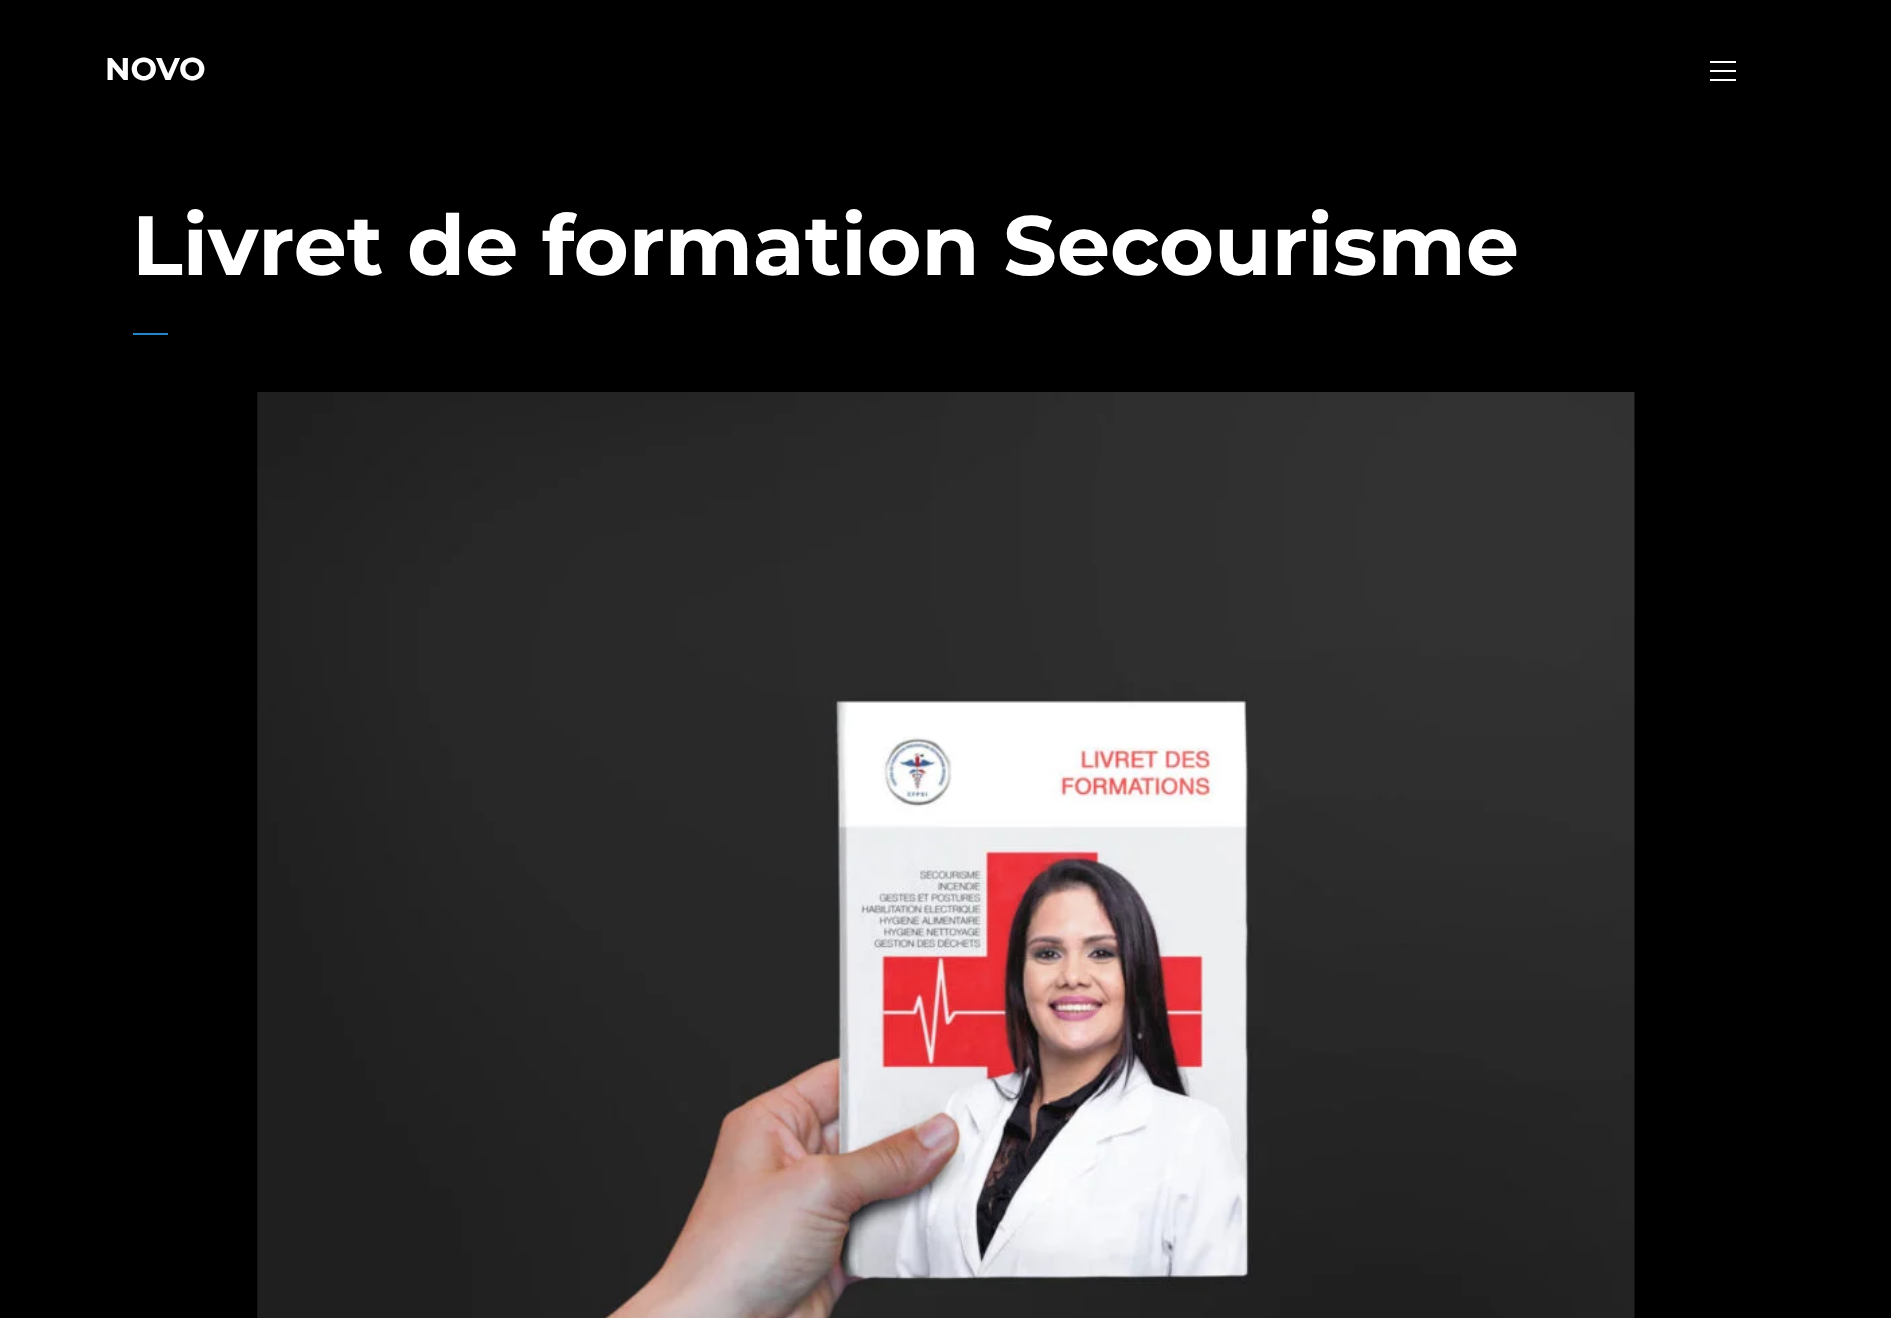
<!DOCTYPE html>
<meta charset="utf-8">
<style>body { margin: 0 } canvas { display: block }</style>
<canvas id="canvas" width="1891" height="1318"></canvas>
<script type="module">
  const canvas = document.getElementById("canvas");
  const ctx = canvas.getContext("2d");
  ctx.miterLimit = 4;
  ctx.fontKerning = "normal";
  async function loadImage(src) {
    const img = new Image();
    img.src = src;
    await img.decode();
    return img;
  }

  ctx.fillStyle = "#000000";
  ctx.fillRect(0, 0, 1891, 1318);
  ctx.font = "bold 31.5px Montserrat";
  ctx.fillStyle = "#ffffff";
  ctx.fillText("NOVO", 105, 80);
  ctx.fillRect(1710, 61, 26, 2);
  ctx.fillRect(1710, 70, 26, 2);
  ctx.fillRect(1710, 79, 26, 2);
  ctx.font = "bold 84px Montserrat";
  ctx.fillText("Livret de formation Secourisme", 132, 275);
  ctx.fillStyle = "#2087cc";
  ctx.fillRect(133, 333, 35, 2);
  ctx.drawImage(await loadImage("img1.png"), 257, 392, 1378, 926);
</script>
